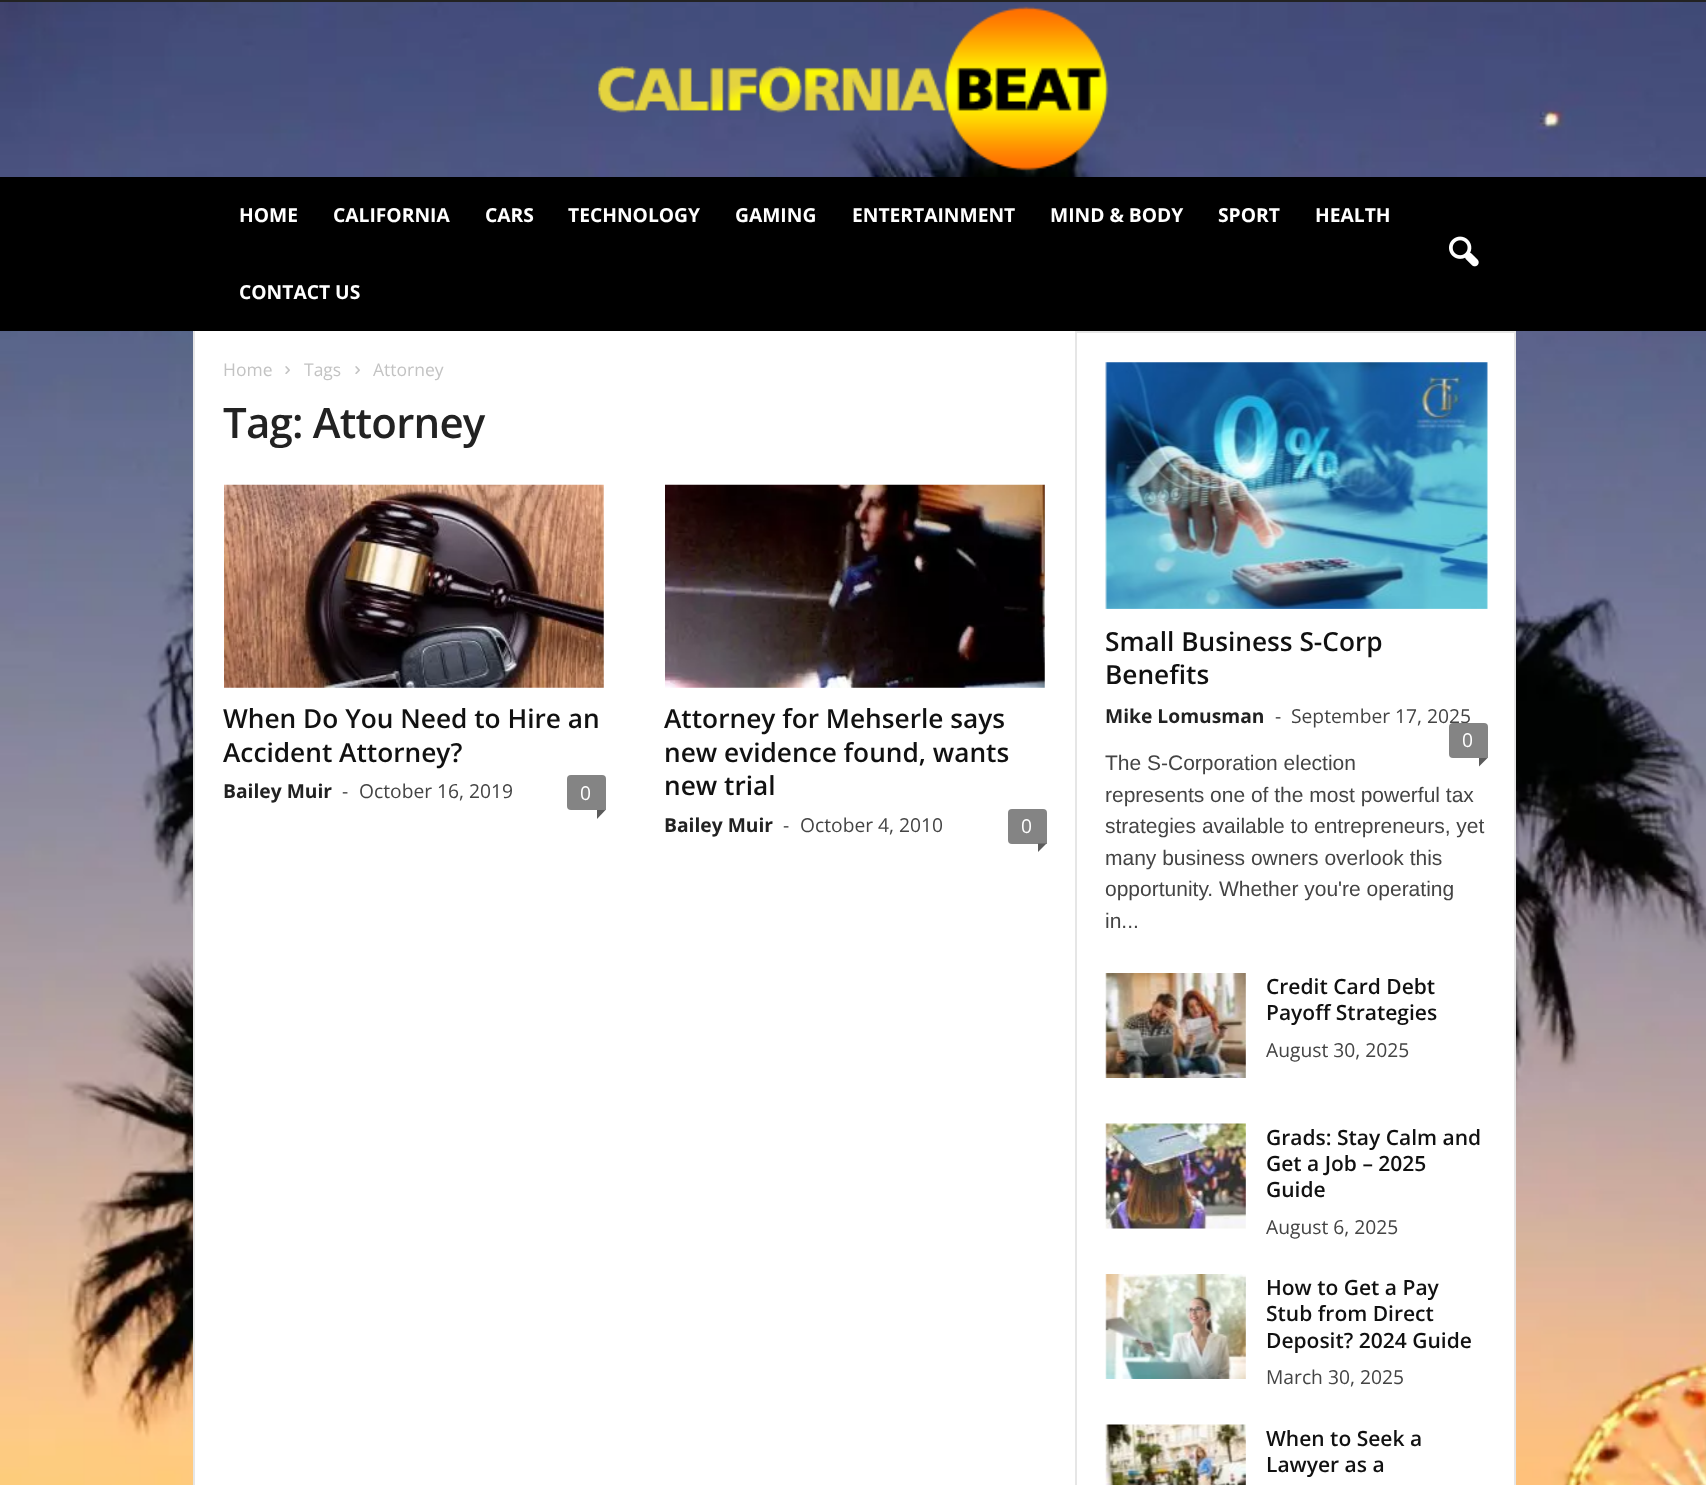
<!DOCTYPE html>
<meta charset="utf-8">
<style>body { margin: 0 } canvas { display: block }</style>
<canvas id="canvas" width="1706" height="1485"></canvas>
<script type="module">
  const canvas = document.getElementById("canvas");
  const ctx = canvas.getContext("2d");
  ctx.miterLimit = 4;
  ctx.fontKerning = "normal";
  async function loadImage(src) {
    const img = new Image();
    img.src = src;
    await img.decode();
    return img;
  }

  ctx.fillStyle = "#ffffff";
  ctx.fillRect(0, 0, 1706, 1485);
  ctx.drawImage(await loadImage("img1.png"), 0, 2, 1706, 1483);
  ctx.fillStyle = "#222222";
  ctx.fillRect(0, 0, 1706, 2);
  ctx.drawImage(await loadImage("img2.png"), 598, 6, 511, 165);
  ctx.fillStyle = "#000000";
  ctx.fillRect(0, 177, 1706, 154);
  ctx.font = "bold 19.25px Open Sans";
  ctx.fillStyle = "#ffffff";
  ctx.fillText("HOME", 239, 222);
  ctx.fillText("CALIFORNIA", 333, 222);
  ctx.fillText("CARS", 485, 222);
  ctx.fillText("TECHNOLOGY", 568, 222);
  ctx.fillText("GAMING", 735, 222);
  ctx.fillText("ENTERTAINMENT", 852, 222);
  ctx.fillText("MIND & BODY", 1050, 222);
  ctx.fillText("SPORT", 1218, 222);
  ctx.fillText("HEALTH", 1315, 222);
  ctx.fillText("CONTACT US", 239, 299);
  ctx.drawImage(await loadImage("img3.png"), 1449, 236, 30, 31);
  ctx.fillRect(195, 331, 1319, 1154);
  ctx.fillStyle = "#e6e6e6";
  ctx.fillRect(193, 331, 2, 1154);
  ctx.font = "17.5px Open Sans";
  ctx.fillStyle = "#c3c3c3";
  ctx.fillText("Home", 223, 376);
  ctx.drawImage(await loadImage("img4.png"), 285, 366, 5, 8);
  ctx.fillText("Tags", 304, 376);
  ctx.drawImage(await loadImage("img4.png"), 355, 366, 5, 8);
  ctx.fillText("Attorney", 373, 376);
  ctx.letterSpacing = "-0.8px";
  ctx.font = "600 42px Open Sans";
  ctx.fillStyle = "#222222";
  ctx.fillText("Tag: Attorney", 223, 438);
  ctx.drawImage(await loadImage("img5.png"), 224, 484, 380, 204);
  ctx.letterSpacing = "0px";
  ctx.font = "600 26.25px Open Sans";
  ctx.fillStyle = "#111111";
  ctx.fillText("When Do You Need to Hire an", 223, 728);
  ctx.fillText("Accident Attorney?", 223, 762);
  ctx.font = "bold 19.25px Open Sans";
  ctx.fillStyle = "#222222";
  ctx.fillText("Bailey Muir", 223, 798);
  ctx.font = "19.25px Open Sans";
  ctx.fillStyle = "#444444";
  ctx.fillText("-", 342, 798);
  ctx.fillText("October 16, 2019", 359, 798);
  ctx.fillStyle = "#848484";
  ctx.beginPath();
  ctx.roundRect(567, 775, 39, 35, [4, 4, 0, 4]);
  ctx.fill();
  ctx.fillStyle = "#ffffff";
  ctx.fillText("0", 580, 800);
  ctx.fillStyle = "#5b5b5b";
  ctx.beginPath();
  ctx.moveTo(597, 810);
  ctx.lineTo(605.5, 810);
  ctx.lineTo(597, 819);
  ctx.closePath();
  ctx.fill();
  ctx.drawImage(await loadImage("img6.png"), 665, 484, 380, 204);
  ctx.font = "600 26.25px Open Sans";
  ctx.fillStyle = "#111111";
  ctx.fillText("Attorney for Mehserle says", 664, 728);
  ctx.fillText("new evidence found, wants", 664, 762);
  ctx.fillText("new trial", 664, 795);
  ctx.font = "bold 19.25px Open Sans";
  ctx.fillStyle = "#222222";
  ctx.fillText("Bailey Muir", 664, 832);
  ctx.font = "19.25px Open Sans";
  ctx.fillStyle = "#444444";
  ctx.fillText("-", 783, 832);
  ctx.fillText("October 4, 2010", 800, 832);
  ctx.fillStyle = "#848484";
  ctx.beginPath();
  ctx.roundRect(1008, 809, 39, 35, [4, 4, 0, 4]);
  ctx.fill();
  ctx.fillStyle = "#ffffff";
  ctx.fillText("0", 1021, 833);
  ctx.fillStyle = "#5b5b5b";
  ctx.beginPath();
  ctx.moveTo(1038, 843.5);
  ctx.lineTo(1046.5, 843.5);
  ctx.lineTo(1038, 852);
  ctx.closePath();
  ctx.fill();
  ctx.fillStyle = "#e6e6e6";
  ctx.fillRect(1075, 331, 2, 1154);
  ctx.fillRect(1514, 331, 2, 1154);
  ctx.fillRect(1076, 331, 440, 2);
  ctx.drawImage(await loadImage("img7.png"), 1105, 362, 383, 247);
  ctx.font = "600 26.25px Open Sans";
  ctx.fillStyle = "#111111";
  ctx.fillText("Small Business S-Corp", 1105, 651);
  ctx.fillText("Benefits", 1105, 684);
  ctx.font = "bold 19.25px Open Sans";
  ctx.fillStyle = "#222222";
  ctx.fillText("Mike Lomusman", 1105, 723);
  ctx.font = "19.25px Open Sans";
  ctx.fillStyle = "#444444";
  ctx.fillText("-", 1275, 723);
  ctx.fillText("September 17, 2025", 1291, 723);
  ctx.fillStyle = "#848484";
  ctx.beginPath();
  ctx.roundRect(1449, 723, 39, 35, [4, 4, 0, 4]);
  ctx.fill();
  ctx.fillStyle = "#ffffff";
  ctx.fillText("0", 1462, 747);
  ctx.fillStyle = "#5b5b5b";
  ctx.beginPath();
  ctx.moveTo(1479, 758);
  ctx.lineTo(1487.5, 758);
  ctx.lineTo(1479, 766.5);
  ctx.closePath();
  ctx.fill();
  ctx.font = "21px Liberation Sans";
  ctx.fillStyle = "#444444";
  ctx.fillText("The S-Corporation election", 1105, 770);
  ctx.fillText("represents one of the most powerful tax", 1105, 802);
  ctx.fillText("strategies available to entrepreneurs, yet", 1105, 833);
  ctx.fillText("many business owners overlook this", 1105, 865);
  ctx.fillText("opportunity. Whether you're operating", 1105, 896);
  ctx.fillText("in...", 1105, 928);
  ctx.drawImage(await loadImage("img8.png"), 1105, 973, 141, 105);
  ctx.font = "600 21px Open Sans";
  ctx.fillStyle = "#111111";
  ctx.fillText("Credit Card Debt", 1266, 994);
  ctx.fillText("Payoff Strategies", 1266, 1020);
  ctx.font = "19.25px Open Sans";
  ctx.fillStyle = "#444444";
  ctx.fillText("August 30, 2025", 1266, 1057);
  ctx.drawImage(await loadImage("img9.png"), 1105, 1123, 141, 106);
  ctx.font = "600 21px Open Sans";
  ctx.fillStyle = "#111111";
  ctx.fillText("Grads: Stay Calm and", 1266, 1145);
  ctx.fillText("Get a Job – 2025", 1266, 1171);
  ctx.fillText("Guide", 1266, 1197);
  ctx.font = "19.25px Open Sans";
  ctx.fillStyle = "#444444";
  ctx.fillText("August 6, 2025", 1266, 1234);
  ctx.drawImage(await loadImage("img10.png"), 1105, 1274, 141, 105);
  ctx.font = "600 21px Open Sans";
  ctx.fillStyle = "#111111";
  ctx.fillText("How to Get a Pay", 1266, 1295);
  ctx.fillText("Stub from Direct", 1266, 1321);
  ctx.fillText("Deposit? 2024 Guide", 1266, 1348);
  ctx.font = "19.25px Open Sans";
  ctx.fillStyle = "#444444";
  ctx.fillText("March 30, 2025", 1266, 1384);
  ctx.drawImage(await loadImage("img11.png"), 1105, 1424, 141, 61);
  ctx.font = "600 21px Open Sans";
  ctx.fillStyle = "#111111";
  ctx.fillText("When to Seek a", 1266, 1446);
  ctx.fillText("Lawyer as a", 1266, 1472);
</script>
